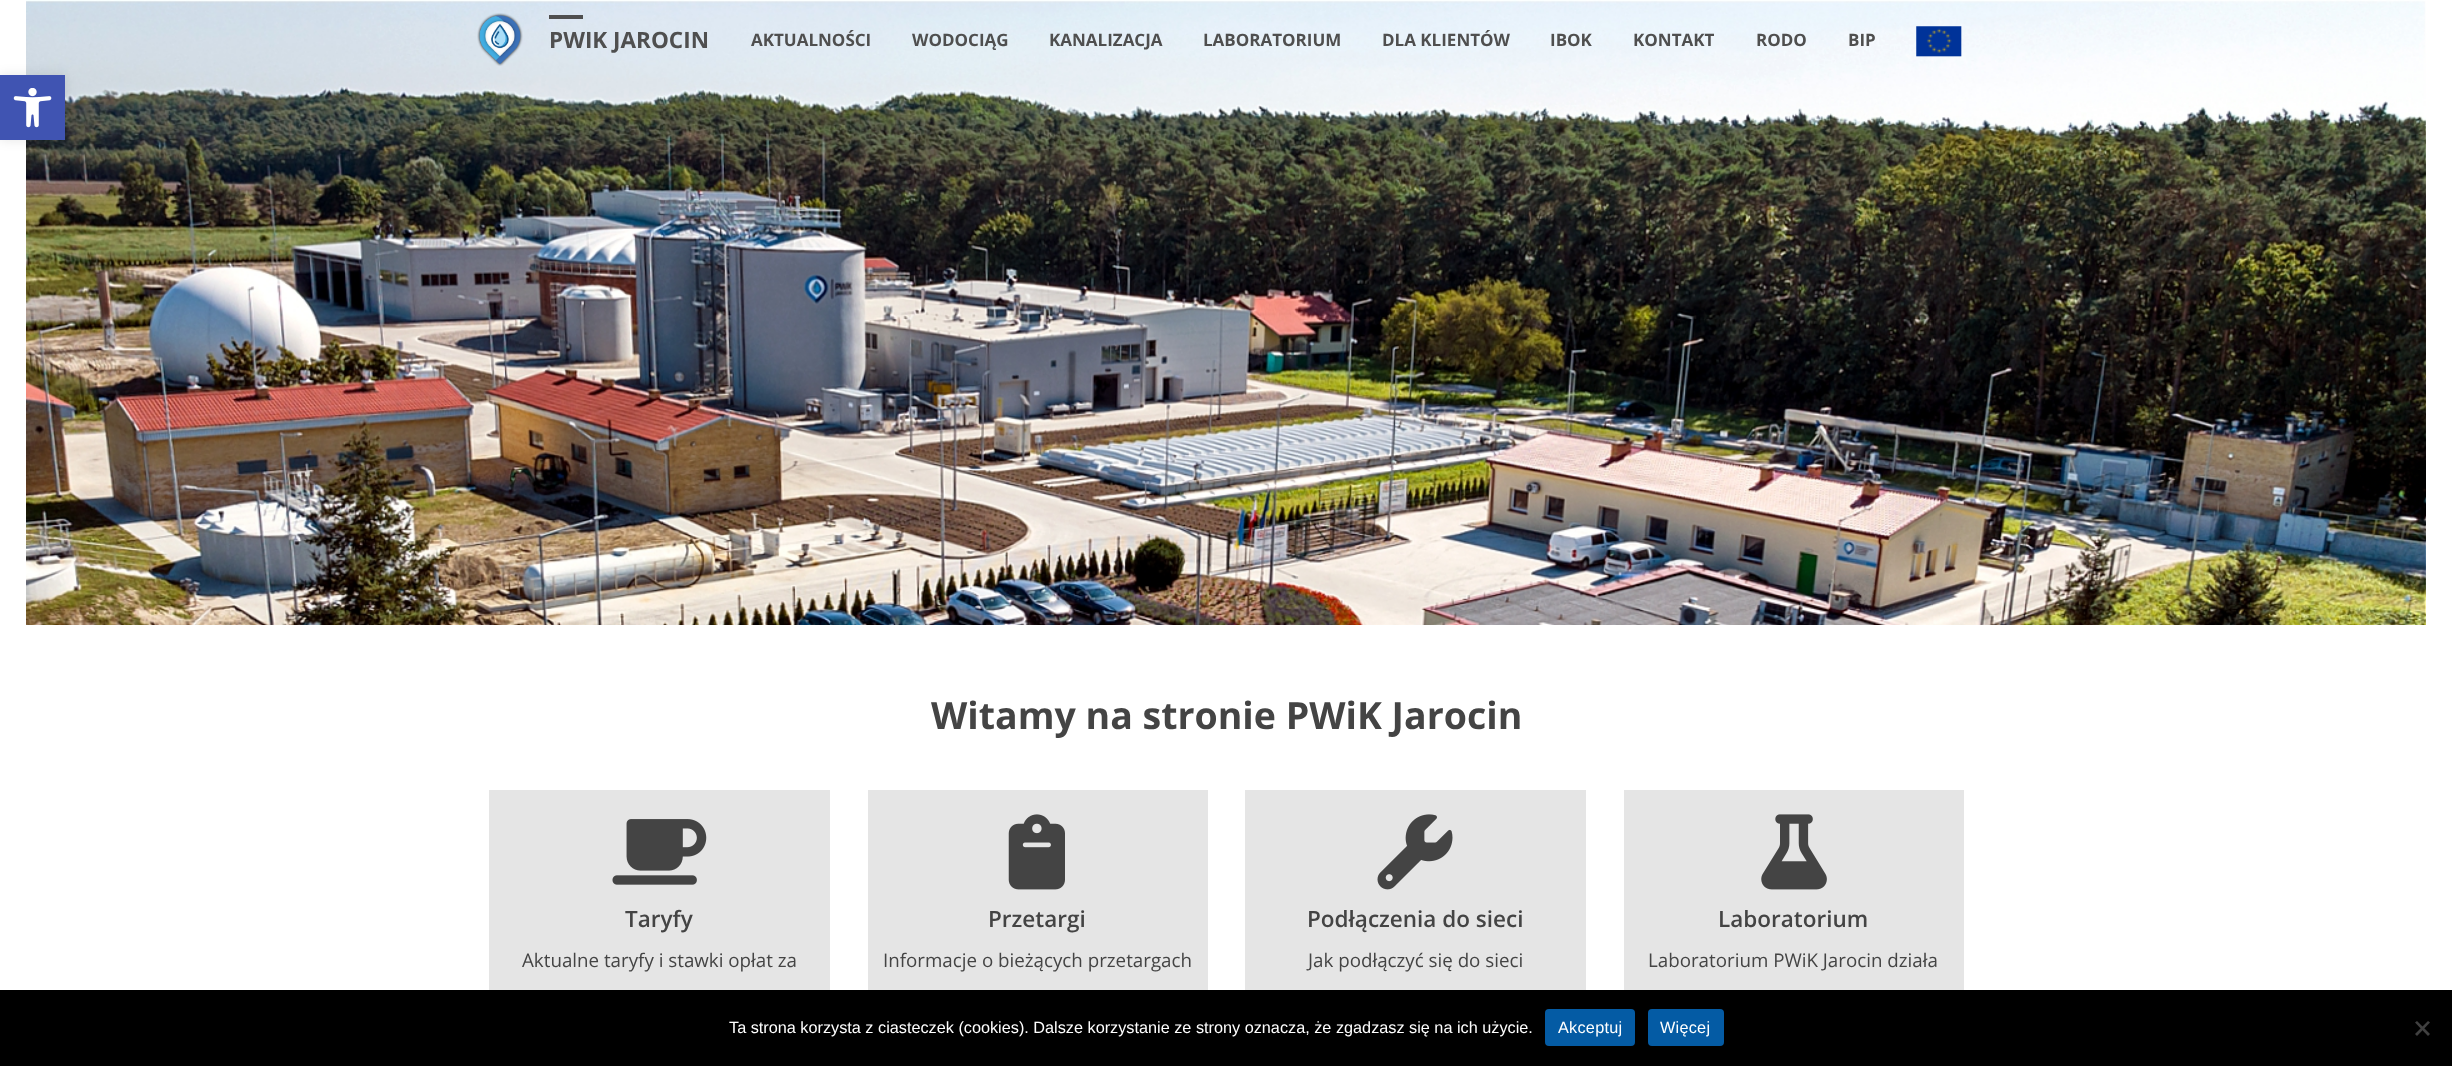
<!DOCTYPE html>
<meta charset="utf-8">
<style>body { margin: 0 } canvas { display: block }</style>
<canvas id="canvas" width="2452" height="1066"></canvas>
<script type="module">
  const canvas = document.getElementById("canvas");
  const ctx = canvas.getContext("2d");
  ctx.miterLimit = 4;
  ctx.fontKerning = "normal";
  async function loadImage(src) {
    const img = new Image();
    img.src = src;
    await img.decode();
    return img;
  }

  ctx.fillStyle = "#ffffff";
  ctx.fillRect(0, 0, 2452, 1066);
  ctx.drawImage(await loadImage("img4.png"), 26, 0, 2400, 625);
  ctx.fillStyle = "rgba(0, 0, 0, 0.1)";
  ctx.filter = "blur(6px)";
  ctx.beginPath();
  ctx.rect(0, 75, 65, 65);
  ctx.fill();
  ctx.filter = "none";
  ctx.fillStyle = "#4054b2";
  ctx.fillRect(0, 75, 65, 65);
  ctx.drawImage(await loadImage("img1.png"), 13, 88, 39, 40);
  ctx.drawImage(await loadImage("img2.png"), 477, 13, 46, 53);
  ctx.fillStyle = "#4f4f4f";
  ctx.fillRect(549, 15, 34, 4);
  ctx.font = "bold 22.5px Open Sans";
  ctx.fillText("PWIK JAROCIN", 549, 48);
  ctx.font = "bold 17px Open Sans";
  ctx.fillText("AKTUALNOŚCI", 751, 46);
  ctx.fillText("WODOCIĄG", 912, 46);
  ctx.fillText("KANALIZACJA", 1049, 46);
  ctx.fillText("LABORATORIUM", 1203, 46);
  ctx.fillText("DLA KLIENTÓW", 1382, 46);
  ctx.fillText("IBOK", 1550, 46);
  ctx.fillText("KONTAKT", 1633, 46);
  ctx.fillText("RODO", 1756, 46);
  ctx.fillText("BIP", 1848, 46);
  ctx.drawImage(await loadImage("img3.png"), 1916, 26, 46, 31);
  ctx.font = "bold 37.5px Open Sans";
  ctx.fillStyle = "#444444";
  ctx.fillText("Witamy na stronie PWiK Jarocin", 931, 729);
  ctx.fillStyle = "#e5e5e5";
  ctx.fillRect(489, 790, 341, 200);
  ctx.drawImage(await loadImage("img5.png"), 612, 819, 95, 66);
  ctx.font = "600 22.5px Open Sans";
  ctx.fillStyle = "#444444";
  ctx.fillText("Taryfy", 625, 927);
  ctx.font = "18.75px Open Sans";
  ctx.fillText("Aktualne taryfy i stawki opłat za", 522, 967);
  ctx.fillStyle = "#e5e5e5";
  ctx.fillRect(868, 790, 340, 200);
  ctx.drawImage(await loadImage("img6.png"), 1008, 814, 57, 76);
  ctx.font = "600 22.5px Open Sans";
  ctx.fillStyle = "#444444";
  ctx.fillText("Przetargi", 988, 927);
  ctx.font = "18.75px Open Sans";
  ctx.fillText("Informacje o bieżących przetargach", 883, 967);
  ctx.fillStyle = "#e5e5e5";
  ctx.fillRect(1245, 790, 341, 200);
  ctx.drawImage(await loadImage("img7.png"), 1377, 814, 76, 76);
  ctx.font = "600 22.5px Open Sans";
  ctx.fillStyle = "#444444";
  ctx.fillText("Podłączenia do sieci", 1307, 927);
  ctx.font = "18.75px Open Sans";
  ctx.fillText("Jak podłączyć się do sieci", 1308, 967);
  ctx.fillStyle = "#e5e5e5";
  ctx.fillRect(1624, 790, 340, 200);
  ctx.drawImage(await loadImage("img8.png"), 1761, 814, 66, 76);
  ctx.font = "600 22.5px Open Sans";
  ctx.fillStyle = "#444444";
  ctx.fillText("Laboratorium", 1718, 927);
  ctx.font = "18.75px Open Sans";
  ctx.fillText("Laboratorium PWiK Jarocin działa", 1648, 967);
  ctx.fillStyle = "#000000";
  ctx.fillRect(0, 990, 2452, 76);
  ctx.font = "16.25px Liberation Sans";
  ctx.fillStyle = "#ffffff";
  ctx.fillText("Ta strona korzysta z ciasteczek (cookies). Dalsze korzystanie ze strony oznacza, że zgadzasz się na ich użycie.", 729, 1033);
  ctx.fillStyle = "#045ba4";
  ctx.beginPath();
  ctx.roundRect(1545, 1009, 90, 37, 4);
  ctx.fill();
  ctx.letterSpacing = "0.25px";
  ctx.fillStyle = "#ffffff";
  ctx.fillText("Akceptuj", 1558, 1033);
  ctx.fillStyle = "#045ba4";
  ctx.beginPath();
  ctx.roundRect(1648, 1009, 76, 37, 4);
  ctx.fill();
  ctx.fillStyle = "#ffffff";
  ctx.fillText("Więcej", 1660, 1033);
  ctx.fillStyle = "#404040";
  ctx.beginPath();
  ctx.moveTo(2428, 1021);
  ctx.lineTo(2430, 1022.5);
  ctx.lineTo(2417, 1036);
  ctx.lineTo(2415, 1034);
  ctx.closePath();
  ctx.fill();
  ctx.beginPath();
  ctx.moveTo(2415, 1022.5);
  ctx.lineTo(2417, 1021);
  ctx.lineTo(2430, 1034);
  ctx.lineTo(2428, 1036);
  ctx.closePath();
  ctx.fill();
</script>
